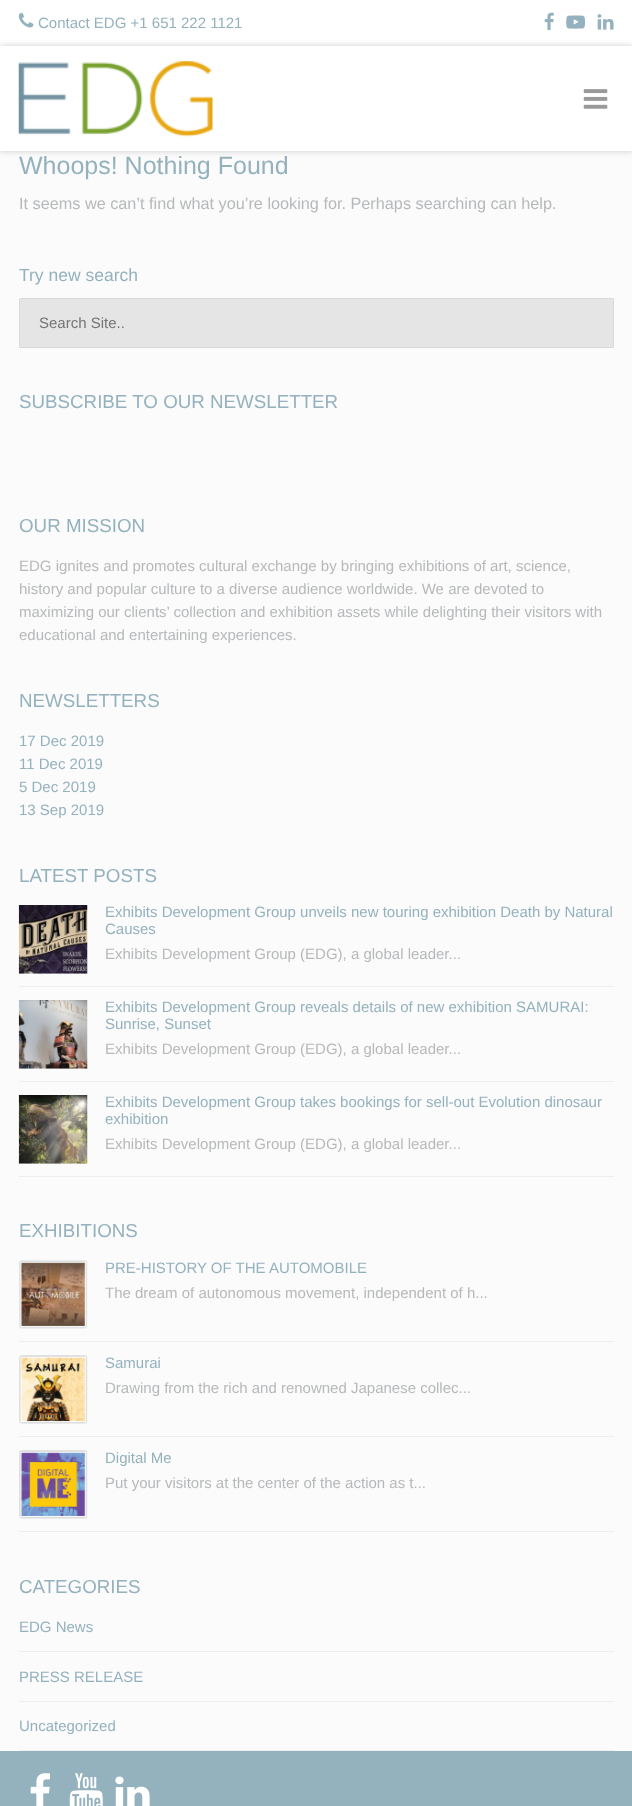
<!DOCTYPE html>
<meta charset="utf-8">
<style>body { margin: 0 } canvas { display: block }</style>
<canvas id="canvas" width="632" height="1806"></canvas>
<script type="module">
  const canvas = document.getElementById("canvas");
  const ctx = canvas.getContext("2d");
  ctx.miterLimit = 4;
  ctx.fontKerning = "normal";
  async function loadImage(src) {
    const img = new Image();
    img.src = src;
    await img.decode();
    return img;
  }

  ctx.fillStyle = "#fbfbfb";
  ctx.fillRect(0, 0, 632, 1806);
  ctx.fillStyle = "#ffffff";
  ctx.fillRect(0, 0, 632, 46);
  ctx.drawImage(await loadImage("img1.png"), 18, 12, 16, 16);
  ctx.font = "15px Liberation Sans";
  ctx.fillStyle = "#94b1be";
  ctx.fillText("Contact EDG +1 651 222 1121", 38, 28);
  ctx.drawImage(await loadImage("img2.png"), 544, 12, 10, 19);
  ctx.drawImage(await loadImage("img3.png"), 566, 15, 19, 14);
  ctx.drawImage(await loadImage("img4.png"), 597, 14, 17, 16);
  ctx.fillStyle = "rgba(0, 0, 0, 0.19)";
  ctx.filter = "blur(3px)";
  ctx.beginPath();
  ctx.rect(0, 46, 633, 105);
  ctx.fill();
  ctx.filter = "none";
  ctx.fillStyle = "#ffffff";
  ctx.fillRect(0, 46, 632, 105);
  ctx.drawImage(await loadImage("img5.png"), 18, 61, 195, 76);
  ctx.drawImage(await loadImage("img6.png"), 583, 89, 25, 20);
  ctx.font = "25px Liberation Sans";
  ctx.fillStyle = "#94b1be";
  ctx.fillText("Whoops! Nothing Found", 19, 174);
  ctx.font = "16.25px Liberation Sans";
  ctx.fillStyle = "#b6b8ba";
  ctx.fillText("It seems we can’t find what you’re looking for. Perhaps searching can help.", 19, 209);
  ctx.font = "17.5px Liberation Sans";
  ctx.fillStyle = "#94b1be";
  ctx.fillText("Try new search", 19, 281);
  ctx.fillStyle = "#e5e5e5";
  ctx.beginPath();
  ctx.roundRect(19, 298, 595, 50, 2.5);
  ctx.fill();
  ctx.strokeStyle = "rgba(0, 0, 0, 0.05)";
  ctx.strokeRect(19.5, 298.5, 594, 49);
  ctx.font = "15px Liberation Sans";
  ctx.fillStyle = "#757575";
  ctx.fillText("Search Site..", 39, 328);
  ctx.font = "18.75px Liberation Sans";
  ctx.fillStyle = "#94b1be";
  ctx.fillText("SUBSCRIBE TO OUR NEWSLETTER", 19, 408);
  ctx.fillText("OUR MISSION", 19, 532);
  ctx.font = "15px Liberation Sans";
  ctx.fillStyle = "#b6b8ba";
  ctx.fillText("EDG ignites and promotes cultural exchange by bringing exhibitions of art, science,", 19, 571);
  ctx.fillText("history and popular culture to a diverse audience worldwide. We are devoted to", 19, 594);
  ctx.fillText("maximizing our clients’ collection and exhibition assets while delighting their visitors with", 19, 617);
  ctx.fillText("educational and entertaining experiences.", 19, 640);
  ctx.font = "18.75px Liberation Sans";
  ctx.fillStyle = "#94b1be";
  ctx.fillText("NEWSLETTERS", 19, 707);
  ctx.font = "15px Liberation Sans";
  ctx.fillText("17 Dec 2019", 19, 746);
  ctx.fillText("11 Dec 2019", 19, 769);
  ctx.fillText("5 Dec 2019", 19, 792);
  ctx.fillText("13 Sep 2019", 19, 815);
  ctx.font = "18.75px Liberation Sans";
  ctx.fillText("LATEST POSTS", 19, 882);
  ctx.fillStyle = "#eeeeee";
  ctx.fillRect(19, 986, 595, 1);
  ctx.drawImage(await loadImage("img7.png"), 18, 905, 70, 69);
  ctx.font = "15px Liberation Sans";
  ctx.fillStyle = "#94b1be";
  ctx.fillText("Exhibits Development Group unveils new touring exhibition Death by Natural", 105, 917);
  ctx.fillText("Causes", 105, 934);
  ctx.fillStyle = "#b6b8ba";
  ctx.fillText("Exhibits Development Group (EDG), a global leader...", 105, 959);
  ctx.fillStyle = "#eeeeee";
  ctx.fillRect(19, 1081, 595, 1);
  ctx.drawImage(await loadImage("img8.png"), 18, 1000, 70, 69);
  ctx.fillStyle = "#94b1be";
  ctx.fillText("Exhibits Development Group reveals details of new exhibition SAMURAI:", 105, 1012);
  ctx.fillText("Sunrise, Sunset", 105, 1029);
  ctx.fillStyle = "#b6b8ba";
  ctx.fillText("Exhibits Development Group (EDG), a global leader...", 105, 1054);
  ctx.fillStyle = "#eeeeee";
  ctx.fillRect(19, 1176, 595, 1);
  ctx.drawImage(await loadImage("img9.png"), 18, 1095, 70, 69);
  ctx.fillStyle = "#94b1be";
  ctx.fillText("Exhibits Development Group takes bookings for sell-out Evolution dinosaur", 105, 1107);
  ctx.fillText("exhibition", 105, 1124);
  ctx.fillStyle = "#b6b8ba";
  ctx.fillText("Exhibits Development Group (EDG), a global leader...", 105, 1149);
  ctx.font = "18.75px Liberation Sans";
  ctx.fillStyle = "#94b1be";
  ctx.fillText("EXHIBITIONS", 19, 1237);
  ctx.fillStyle = "#eeeeee";
  ctx.fillRect(19, 1341, 595, 1);
  ctx.drawImage(await loadImage("img10.png"), 19, 1260, 69, 69);
  ctx.font = "15px Liberation Sans";
  ctx.fillStyle = "#94b1be";
  ctx.fillText("PRE-HISTORY OF THE AUTOMOBILE", 105, 1273);
  ctx.fillStyle = "#b6b8ba";
  ctx.fillText("The dream of autonomous movement, independent of h...", 105, 1298);
  ctx.fillStyle = "#eeeeee";
  ctx.fillRect(19, 1436, 595, 1);
  ctx.drawImage(await loadImage("img11.png"), 19, 1355, 69, 69);
  ctx.fillStyle = "#94b1be";
  ctx.fillText("Samurai", 105, 1368);
  ctx.fillStyle = "#b6b8ba";
  ctx.fillText("Drawing from the rich and renowned Japanese collec...", 105, 1393);
  ctx.fillStyle = "#eeeeee";
  ctx.fillRect(19, 1531, 595, 1);
  ctx.drawImage(await loadImage("img12.png"), 19, 1450, 69, 69);
  ctx.fillStyle = "#94b1be";
  ctx.fillText("Digital Me", 105, 1463);
  ctx.fillStyle = "#b6b8ba";
  ctx.fillText("Put your visitors at the center of the action as t...", 105, 1488);
  ctx.font = "18.75px Liberation Sans";
  ctx.fillStyle = "#94b1be";
  ctx.fillText("CATEGORIES", 19, 1593);
  ctx.fillStyle = "#eeeeee";
  ctx.fillRect(19, 1651, 595, 1);
  ctx.font = "15px Liberation Sans";
  ctx.fillStyle = "#94b1be";
  ctx.fillText("EDG News", 19, 1632);
  ctx.fillStyle = "#eeeeee";
  ctx.fillRect(19, 1701, 595, 1);
  ctx.fillStyle = "#94b1be";
  ctx.fillText("PRESS RELEASE", 19, 1682);
  ctx.fillStyle = "#eeeeee";
  ctx.fillRect(19, 1750, 595, 1);
  ctx.fillStyle = "#94b1be";
  ctx.fillText("Uncategorized", 19, 1731);
  ctx.fillRect(0, 1751, 632, 55);
  ctx.drawImage(await loadImage("img13.png"), 30, 1773, 20, 33);
  ctx.drawImage(await loadImage("img14.png"), 69, 1773, 34, 33);
  ctx.drawImage(await loadImage("img15.png"), 115, 1776, 35, 30);
</script>
